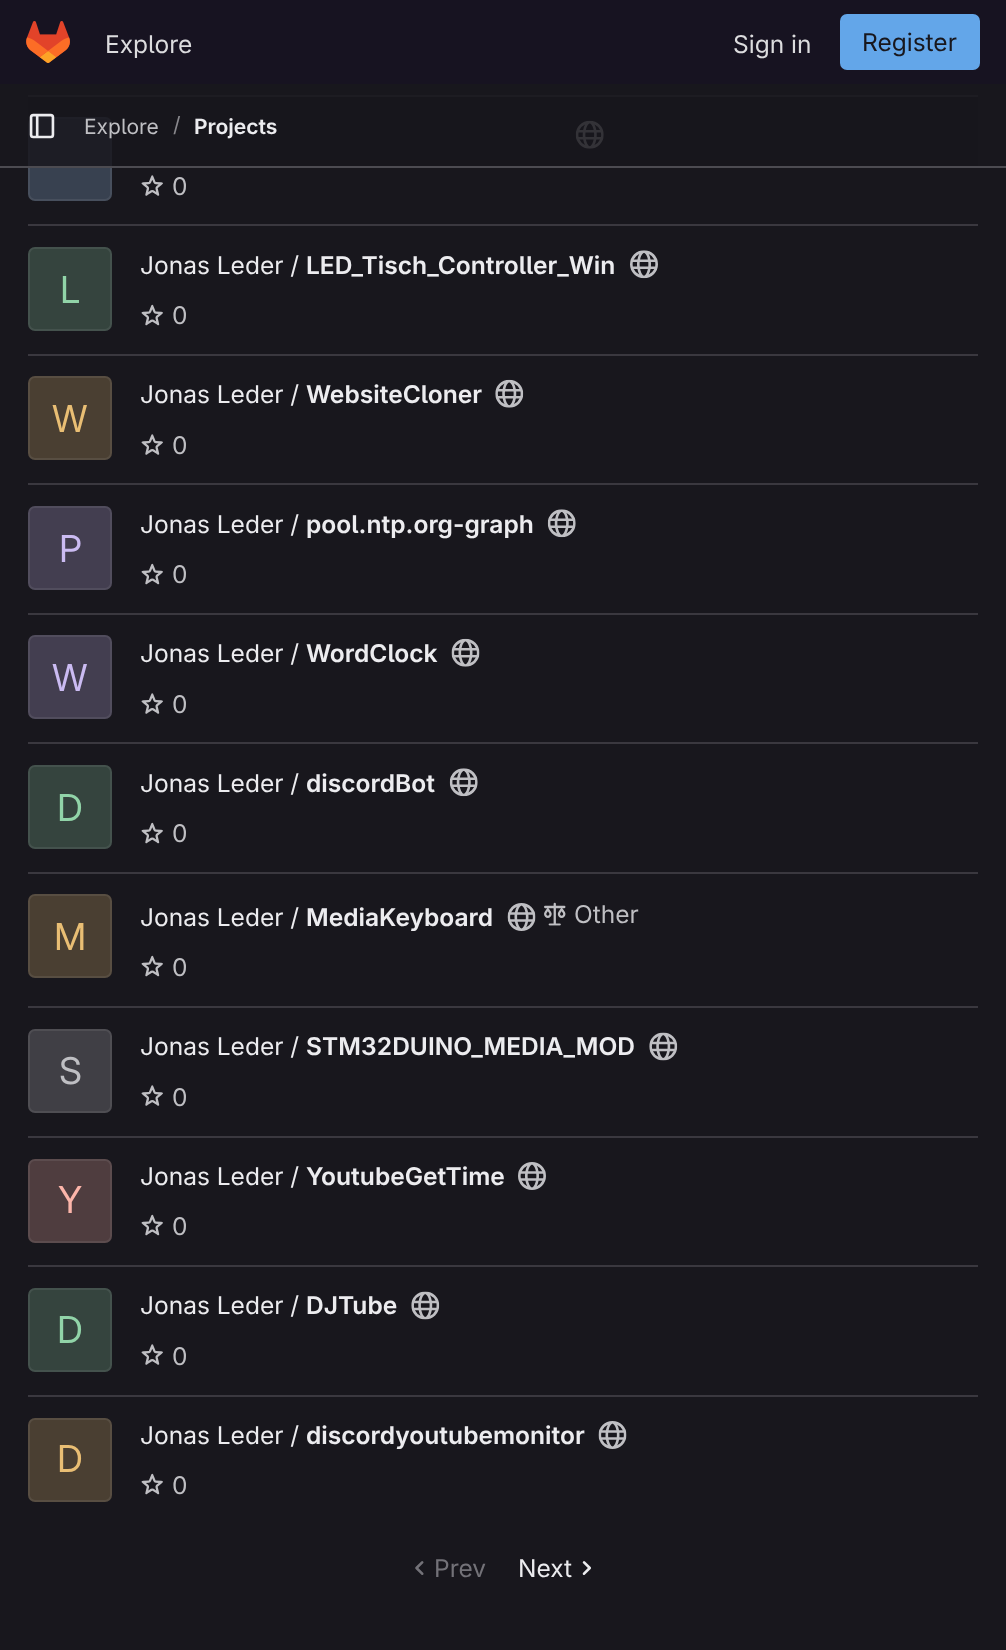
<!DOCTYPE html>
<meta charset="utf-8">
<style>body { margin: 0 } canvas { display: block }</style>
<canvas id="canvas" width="1006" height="1650"></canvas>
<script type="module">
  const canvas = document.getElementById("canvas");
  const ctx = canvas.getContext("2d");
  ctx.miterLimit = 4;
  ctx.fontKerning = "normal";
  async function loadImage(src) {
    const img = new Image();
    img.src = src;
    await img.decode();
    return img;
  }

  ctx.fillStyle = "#18171d";
  ctx.fillRect(0, 0, 1006, 1650);
  ctx.fillStyle = "#171321";
  ctx.fillRect(0, 0, 1006, 84);
  ctx.drawImage(await loadImage("img1.png"), 26, 21, 44, 42);
  ctx.font = "24.5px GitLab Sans";
  ctx.fillStyle = "#dcdcde";
  ctx.fillText("Explore", 105, 53);
  ctx.fillText("Sign in", 733, 53);
  ctx.fillStyle = "#63a6e9";
  ctx.beginPath();
  ctx.roundRect(840, 14, 140, 56, 7);
  ctx.fill();
  ctx.fillStyle = "#18171d";
  ctx.fillText("Register", 862, 51);
  ctx.fillStyle = "#3a383f";
  ctx.fillRect(28, 95, 950, 2);
  ctx.fillStyle = "#384150";
  ctx.beginPath();
  ctx.roundRect(28, 117, 84, 84, 7);
  ctx.fill();
  ctx.beginPath();
  ctx.roundRect(29, 118, 82, 82, 6);
  ctx.strokeStyle = "rgba(255, 255, 255, 0.08)";
  ctx.lineWidth = 2;
  ctx.stroke();
  ctx.drawImage(await loadImage("img3.png"), 575, 120, 29, 29);
  ctx.fillStyle = "rgba(24, 23, 29, 0.84)";
  ctx.fillRect(28, 95, 950, 71);
  ctx.fillStyle = "#4c4b51";
  ctx.fillRect(0, 166, 1006, 2);
  ctx.drawImage(await loadImage("img2.png"), 29, 113, 26, 26);
  ctx.font = "21px GitLab Sans";
  ctx.fillStyle = "#bfbfc3";
  ctx.fillText("Explore", 84, 134);
  ctx.fillStyle = "#89888d";
  ctx.fillText("/", 173, 132);
  ctx.font = "600 21px GitLab Sans";
  ctx.fillStyle = "#ececef";
  ctx.fillText("Projects", 194, 134);
  ctx.fillStyle = "#3a383f";
  ctx.fillRect(28, 224, 950, 2);
  ctx.drawImage(await loadImage("img4.png"), 141, 175, 22, 21);
  ctx.font = "24.5px GitLab Sans";
  ctx.fillStyle = "#bfbfc3";
  ctx.fillText("0", 172, 195);
  ctx.fillStyle = "#3a383f";
  ctx.fillRect(28, 354, 950, 2);
  ctx.fillStyle = "#35443e";
  ctx.beginPath();
  ctx.roundRect(28, 247, 84, 84, 7);
  ctx.fill();
  ctx.beginPath();
  ctx.roundRect(29, 248, 82, 82, 6);
  ctx.stroke();
  ctx.font = "37px 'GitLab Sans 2'";
  ctx.fillStyle = "#91d4a8";
  ctx.fillText("L", 60, 303);
  ctx.font = "24.5px GitLab Sans";
  ctx.fillStyle = "#ececef";
  ctx.fillText("Jonas Leder /", 140, 274);
  ctx.font = "600 24.5px GitLab Sans";
  ctx.fillText("LED_Tisch_Controller_Win", 306, 274);
  ctx.drawImage(await loadImage("img5.png"), 630, 250, 28, 29);
  ctx.drawImage(await loadImage("img6.png"), 141, 304, 22, 22);
  ctx.font = "24.5px GitLab Sans";
  ctx.fillStyle = "#bfbfc3";
  ctx.fillText("0", 172, 324);
  ctx.fillStyle = "#3a383f";
  ctx.fillRect(28, 483, 950, 2);
  ctx.fillStyle = "#4a3f32";
  ctx.beginPath();
  ctx.roundRect(28, 376, 84, 84, 7);
  ctx.fill();
  ctx.beginPath();
  ctx.roundRect(29, 377, 82, 82, 6);
  ctx.stroke();
  ctx.font = "37px 'GitLab Sans 2'";
  ctx.fillStyle = "#e9be74";
  ctx.fillText("W", 52, 432);
  ctx.font = "24.5px GitLab Sans";
  ctx.fillStyle = "#ececef";
  ctx.fillText("Jonas Leder /", 140, 403);
  ctx.font = "600 24.5px GitLab Sans";
  ctx.fillText("WebsiteCloner", 306, 403);
  ctx.drawImage(await loadImage("img7.png"), 495, 379, 29, 29);
  ctx.drawImage(await loadImage("img4.png"), 141, 434, 22, 21);
  ctx.font = "24.5px GitLab Sans";
  ctx.fillStyle = "#bfbfc3";
  ctx.fillText("0", 172, 454);
  ctx.fillStyle = "#3a383f";
  ctx.fillRect(28, 613, 950, 2);
  ctx.fillStyle = "#433e50";
  ctx.beginPath();
  ctx.roundRect(28, 506, 84, 84, 7);
  ctx.fill();
  ctx.beginPath();
  ctx.roundRect(29, 507, 82, 82, 6);
  ctx.stroke();
  ctx.font = "37px 'GitLab Sans 2'";
  ctx.fillStyle = "#cbbbf2";
  ctx.fillText("P", 59, 562);
  ctx.font = "24.5px GitLab Sans";
  ctx.fillStyle = "#ececef";
  ctx.fillText("Jonas Leder /", 140, 533);
  ctx.font = "600 24.5px GitLab Sans";
  ctx.fillText("pool.ntp.org-graph", 306, 533);
  ctx.drawImage(await loadImage("img8.png"), 547, 509, 29, 29);
  ctx.drawImage(await loadImage("img6.png"), 141, 563, 22, 22);
  ctx.font = "24.5px GitLab Sans";
  ctx.fillStyle = "#bfbfc3";
  ctx.fillText("0", 172, 583);
  ctx.fillStyle = "#3a383f";
  ctx.fillRect(28, 742, 950, 2);
  ctx.fillStyle = "#433e50";
  ctx.beginPath();
  ctx.roundRect(28, 635, 84, 84, 7);
  ctx.fill();
  ctx.beginPath();
  ctx.roundRect(29, 636, 82, 82, 6);
  ctx.stroke();
  ctx.font = "37px 'GitLab Sans 2'";
  ctx.fillStyle = "#cbbbf2";
  ctx.fillText("W", 52, 691);
  ctx.font = "24.5px GitLab Sans";
  ctx.fillStyle = "#ececef";
  ctx.fillText("Jonas Leder /", 140, 662);
  ctx.font = "600 24.5px GitLab Sans";
  ctx.fillText("WordClock", 306, 662);
  ctx.drawImage(await loadImage("img9.png"), 451, 638, 29, 29);
  ctx.drawImage(await loadImage("img4.png"), 141, 693, 22, 21);
  ctx.font = "24.5px GitLab Sans";
  ctx.fillStyle = "#bfbfc3";
  ctx.fillText("0", 172, 713);
  ctx.fillStyle = "#3a383f";
  ctx.fillRect(28, 872, 950, 2);
  ctx.fillStyle = "#35443e";
  ctx.beginPath();
  ctx.roundRect(28, 765, 84, 84, 7);
  ctx.fill();
  ctx.beginPath();
  ctx.roundRect(29, 766, 82, 82, 6);
  ctx.stroke();
  ctx.font = "37px 'GitLab Sans 2'";
  ctx.fillStyle = "#91d4a8";
  ctx.fillText("D", 57, 821);
  ctx.font = "24.5px GitLab Sans";
  ctx.fillStyle = "#ececef";
  ctx.fillText("Jonas Leder /", 140, 792);
  ctx.font = "600 24.5px GitLab Sans";
  ctx.fillText("discordBot", 306, 792);
  ctx.drawImage(await loadImage("img8.png"), 449, 768, 29, 29);
  ctx.drawImage(await loadImage("img6.png"), 141, 822, 22, 22);
  ctx.font = "24.5px GitLab Sans";
  ctx.fillStyle = "#bfbfc3";
  ctx.fillText("0", 172, 842);
  ctx.fillStyle = "#3a383f";
  ctx.fillRect(28, 1006, 950, 2);
  ctx.fillStyle = "#4a3f32";
  ctx.beginPath();
  ctx.roundRect(28, 894, 84, 84, 7);
  ctx.fill();
  ctx.beginPath();
  ctx.roundRect(29, 895, 82, 82, 6);
  ctx.stroke();
  ctx.font = "37px 'GitLab Sans 2'";
  ctx.fillStyle = "#e9be74";
  ctx.fillText("M", 54, 950);
  ctx.font = "24.5px GitLab Sans";
  ctx.fillStyle = "#ececef";
  ctx.fillText("Jonas Leder /", 140, 926);
  ctx.font = "600 24.5px GitLab Sans";
  ctx.fillText("MediaKeyboard", 306, 926);
  ctx.drawImage(await loadImage("img10.png"), 507, 903, 29, 28);
  ctx.drawImage(await loadImage("img11.png"), 544, 902, 22, 24);
  ctx.font = "24.5px GitLab Sans";
  ctx.fillStyle = "#bfbfc3";
  ctx.fillText("Other", 574, 923);
  ctx.drawImage(await loadImage("img6.png"), 141, 955, 22, 22);
  ctx.fillText("0", 172, 976);
  ctx.fillStyle = "#3a383f";
  ctx.fillRect(28, 1136, 950, 2);
  ctx.fillStyle = "#403f45";
  ctx.beginPath();
  ctx.roundRect(28, 1029, 84, 84, 7);
  ctx.fill();
  ctx.beginPath();
  ctx.roundRect(29, 1030, 82, 82, 6);
  ctx.stroke();
  ctx.font = "37px 'GitLab Sans 2'";
  ctx.fillStyle = "#bfbfc3";
  ctx.fillText("S", 59, 1084);
  ctx.font = "24.5px GitLab Sans";
  ctx.fillStyle = "#ececef";
  ctx.fillText("Jonas Leder /", 140, 1055);
  ctx.font = "600 24.5px GitLab Sans";
  ctx.fillText("STM32DUINO_MEDIA_MOD", 306, 1055);
  ctx.drawImage(await loadImage("img12.png"), 649, 1032, 29, 29);
  ctx.drawImage(await loadImage("img4.png"), 141, 1085, 22, 21);
  ctx.font = "24.5px GitLab Sans";
  ctx.fillStyle = "#bfbfc3";
  ctx.fillText("0", 172, 1106);
  ctx.fillStyle = "#3a383f";
  ctx.fillRect(28, 1265, 950, 2);
  ctx.fillStyle = "#4f3d3f";
  ctx.beginPath();
  ctx.roundRect(28, 1159, 84, 84, 7);
  ctx.fill();
  ctx.beginPath();
  ctx.roundRect(29, 1160, 82, 82, 6);
  ctx.stroke();
  ctx.font = "37px 'GitLab Sans 2'";
  ctx.fillStyle = "#fcb5aa";
  ctx.fillText("Y", 58, 1213);
  ctx.font = "24.5px GitLab Sans";
  ctx.fillStyle = "#ececef";
  ctx.fillText("Jonas Leder /", 140, 1185);
  ctx.font = "600 24.5px GitLab Sans";
  ctx.fillText("YoutubeGetTime", 306, 1185);
  ctx.drawImage(await loadImage("img13.png"), 518, 1162, 28, 28);
  ctx.drawImage(await loadImage("img6.png"), 141, 1214, 22, 22);
  ctx.font = "24.5px GitLab Sans";
  ctx.fillStyle = "#bfbfc3";
  ctx.fillText("0", 172, 1235);
  ctx.fillStyle = "#3a383f";
  ctx.fillRect(28, 1395, 950, 2);
  ctx.fillStyle = "#35443e";
  ctx.beginPath();
  ctx.roundRect(28, 1288, 84, 84, 7);
  ctx.fill();
  ctx.beginPath();
  ctx.roundRect(29, 1289, 82, 82, 6);
  ctx.stroke();
  ctx.font = "37px 'GitLab Sans 2'";
  ctx.fillStyle = "#91d4a8";
  ctx.fillText("D", 57, 1343);
  ctx.font = "24.5px GitLab Sans";
  ctx.fillStyle = "#ececef";
  ctx.fillText("Jonas Leder /", 140, 1314);
  ctx.font = "600 24.5px GitLab Sans";
  ctx.fillText("DJTube", 306, 1314);
  ctx.drawImage(await loadImage("img12.png"), 411, 1291, 29, 29);
  ctx.drawImage(await loadImage("img4.png"), 141, 1344, 22, 21);
  ctx.font = "24.5px GitLab Sans";
  ctx.fillStyle = "#bfbfc3";
  ctx.fillText("0", 172, 1365);
  ctx.fillStyle = "#4a3f32";
  ctx.beginPath();
  ctx.roundRect(28, 1418, 84, 84, 7);
  ctx.fill();
  ctx.beginPath();
  ctx.roundRect(29, 1419, 82, 82, 6);
  ctx.stroke();
  ctx.font = "37px 'GitLab Sans 2'";
  ctx.fillStyle = "#e9be74";
  ctx.fillText("D", 57, 1472);
  ctx.font = "24.5px GitLab Sans";
  ctx.fillStyle = "#ececef";
  ctx.fillText("Jonas Leder /", 140, 1444);
  ctx.font = "600 24.5px GitLab Sans";
  ctx.fillText("discordyoutubemonitor", 306, 1444);
  ctx.drawImage(await loadImage("img14.png"), 598, 1421, 29, 28);
  ctx.drawImage(await loadImage("img6.png"), 141, 1473, 22, 22);
  ctx.font = "24.5px GitLab Sans";
  ctx.fillStyle = "#bfbfc3";
  ctx.fillText("0", 172, 1494);
  ctx.drawImage(await loadImage("img15.png"), 415, 1561, 9, 14);
  ctx.fillStyle = "#737278";
  ctx.fillText("Prev", 434, 1577);
  ctx.fillStyle = "#ececef";
  ctx.fillText("Next", 518, 1577);
  ctx.drawImage(await loadImage("img16.png"), 582, 1561, 9, 14);
</script>
